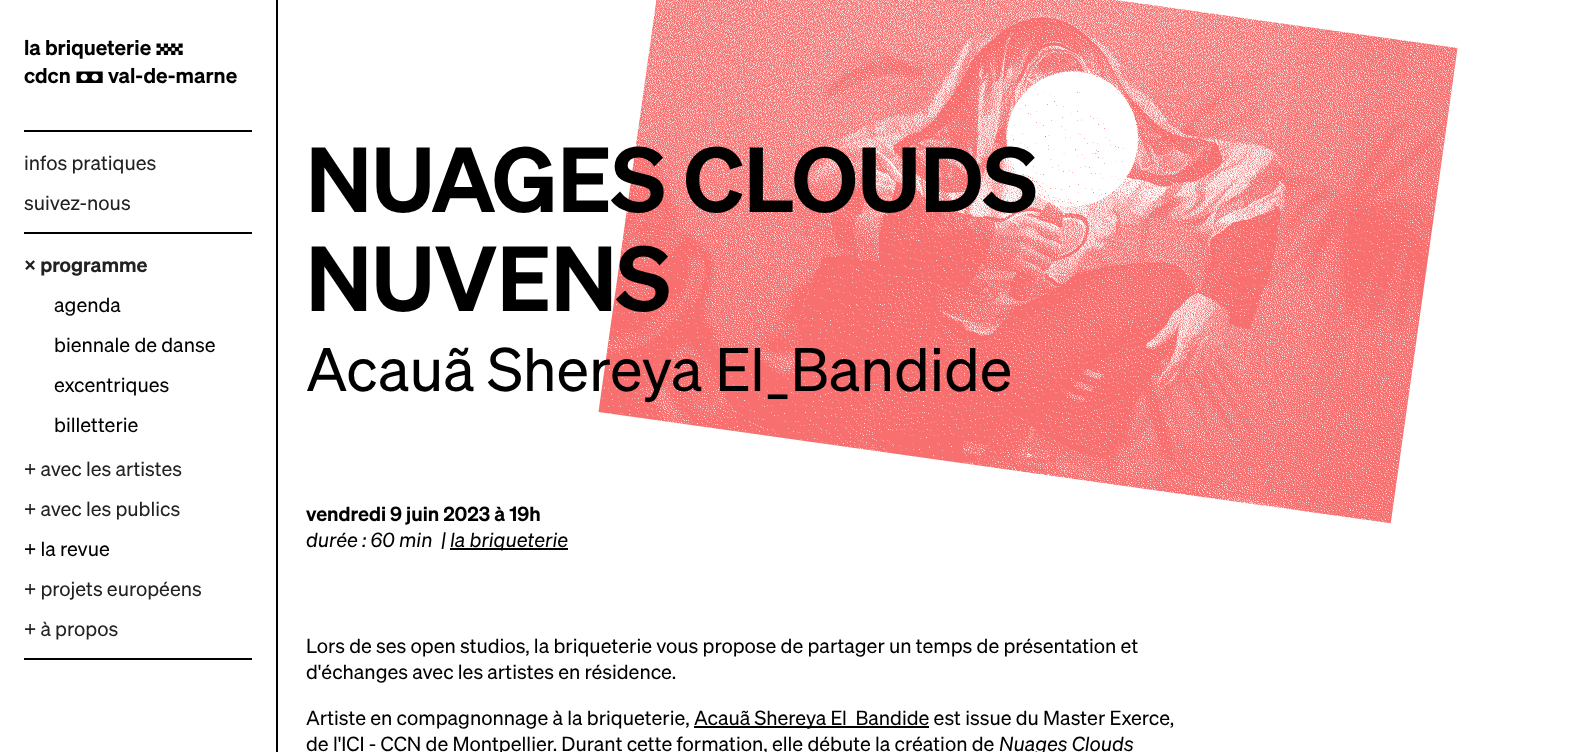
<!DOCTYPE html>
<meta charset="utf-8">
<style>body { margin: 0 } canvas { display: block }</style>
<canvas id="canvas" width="1595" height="752"></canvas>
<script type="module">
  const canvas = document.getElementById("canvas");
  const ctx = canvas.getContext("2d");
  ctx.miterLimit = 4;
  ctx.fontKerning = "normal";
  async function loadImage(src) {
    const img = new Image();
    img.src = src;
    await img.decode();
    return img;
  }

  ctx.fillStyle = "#ffffff";
  ctx.fillRect(0, 0, 1595, 752);
  ctx.fillStyle = "#000000";
  ctx.fillRect(276, 0, 2, 752);
  ctx.font = "600 21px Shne";
  ctx.fillText("la briqueterie", 24, 55);
  ctx.font = "bold 21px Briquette";
  ctx.fillText(".", 155, 55);
  ctx.font = "600 21px Shne";
  ctx.fillText("cdcn", 24, 83);
  ctx.font = "bold 21px Briquette";
  ctx.fillText(",", 75, 83);
  ctx.font = "600 21px Shne";
  ctx.fillText("val-de-marne", 108, 83);
  ctx.fillRect(24, 130, 228, 2);
  ctx.font = "20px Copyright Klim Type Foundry";
  ctx.fillStyle = "#222222";
  ctx.fillText("infos pratiques", 24, 170);
  ctx.fillText("suivez-nous", 24, 210);
  ctx.fillStyle = "#000000";
  ctx.fillRect(24, 232, 228, 2);
  ctx.font = "600 20px Shne";
  ctx.fillStyle = "#222222";
  ctx.fillText("× programme", 24, 272);
  ctx.font = "20px Copyright Klim Type Foundry";
  ctx.fillStyle = "#000000";
  ctx.fillText("agenda", 54, 312);
  ctx.fillText("biennale de danse", 54, 352);
  ctx.fillText("excentriques", 54, 392);
  ctx.fillText("billetterie", 54, 432);
  ctx.fillStyle = "#222222";
  ctx.fillText("+ avec les artistes", 24, 476);
  ctx.fillText("+ avec les publics", 24, 516);
  ctx.fillStyle = "#000000";
  ctx.fillText("+ la revue", 24, 556);
  ctx.fillStyle = "#222222";
  ctx.fillText("+ projets européens", 24, 596);
  ctx.fillText("+ à propos", 24, 636);
  ctx.fillStyle = "#000000";
  ctx.fillRect(24, 658, 228, 2);
  ctx.drawImage(await loadImage("img1.png"), 598, 0, 860, 524);
  ctx.font = "600 90px Shne";
  ctx.fillText("NUAGES CLOUDS", 306, 212);
  ctx.fillText("NUVENS", 306, 311);
  ctx.font = "60px Copyright Klim Type Foundry";
  ctx.fillText("Acauã Shereya El_Bandide", 306, 391);
  ctx.font = "600 20px Shne";
  ctx.fillText("vendredi 9 juin 2023 à 19h", 306, 521);
  ctx.font = "italic 20px Copyright Klim Type Foundry";
  ctx.fillText("durée : 60 min", 306, 547);
  ctx.fillText("|", 441, 547);
  ctx.fillRect(450, 548, 118, 2);
  ctx.fillText("la briqueterie", 450, 547);
  ctx.font = "20px Copyright Klim Type Foundry";
  ctx.fillText("Lors de ses open studios, la briqueterie vous propose de partager un temps de présentation et", 306, 653);
  ctx.fillText("d'échanges avec les artistes en résidence.", 306, 679);
  ctx.fillText("Artiste en compagnonnage à la briqueterie,", 306, 725);
  ctx.fillRect(694, 726, 235, 2);
  ctx.fillText("Acauã Shereya El_Bandide est issue du Master Exerce,", 694, 725);
  ctx.fillText("de l'ICI - CCN de Montpellier. Durant cette formation, elle débute la création de", 306, 751);
  ctx.font = "italic 20px Copyright Klim Type Foundry";
  ctx.fillText("Nuages Clouds", 999, 751);
</script>
